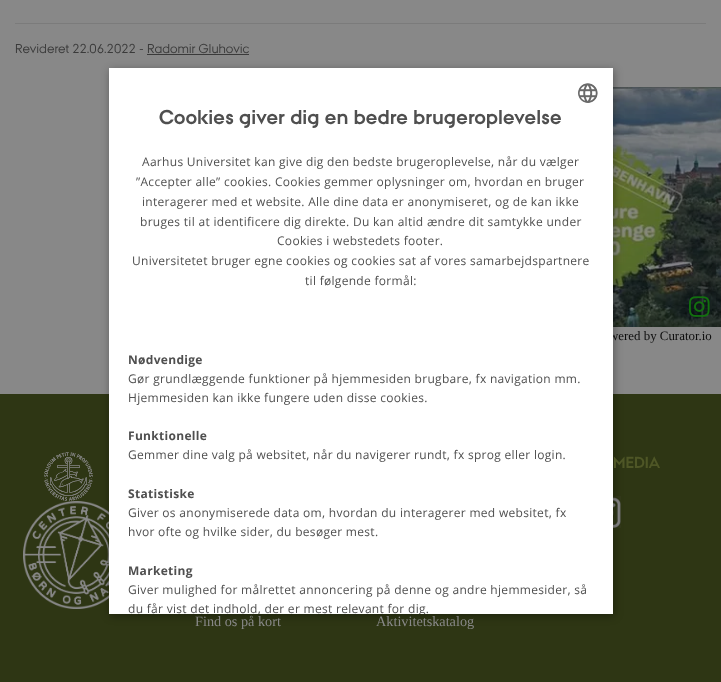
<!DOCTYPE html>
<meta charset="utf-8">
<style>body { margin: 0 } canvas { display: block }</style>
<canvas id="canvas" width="721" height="682"></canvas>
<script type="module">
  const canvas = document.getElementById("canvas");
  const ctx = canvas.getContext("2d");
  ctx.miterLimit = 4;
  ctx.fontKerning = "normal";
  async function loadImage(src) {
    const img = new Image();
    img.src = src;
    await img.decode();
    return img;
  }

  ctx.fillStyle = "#888888";
  ctx.fillRect(0, 0, 721, 682);
  ctx.fillStyle = "#7b7b7b";
  ctx.fillRect(15, 23, 691, 1);
  ctx.font = "12.9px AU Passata";
  ctx.fillStyle = "#3a3a3a";
  ctx.fillText("Revideret 22.06.2022 - Radomir Gluhovic", 15, 53);
  ctx.fillRect(147, 54, 102, 1);
  ctx.drawImage(await loadImage("img2.png"), 613, 87, 108, 240);
  ctx.fillStyle = "#2e3614";
  ctx.fillRect(0, 394, 721, 288);
  ctx.drawImage(await loadImage("img5.png"), 23, 501, 86, 108);
  ctx.drawImage(await loadImage("img6.png"), 613, 496, 8, 32);
  ctx.fillStyle = "rgba(0, 0, 0, 0.35)";
  ctx.filter = "blur(4px)";
  ctx.beginPath();
  ctx.rect(110, 70, 504, 546);
  ctx.fill();
  ctx.filter = "none";
  ctx.font = "12.9px Liberation Serif";
  ctx.fillStyle = "#0d0d0d";
  ctx.fillText("wered by Curator.io", 609, 340);
  ctx.fillStyle = "#ffffff";
  ctx.fillRect(109, 68, 504, 546);
  ctx.drawImage(await loadImage("img1.png"), 578, 83, 20, 20);
  ctx.letterSpacing = "0.4px";
  ctx.font = "bold 20px AU Passata";
  ctx.fillStyle = "#4f4f4f";
  ctx.fillText("Cookies giver dig en bedre brugeroplevelse", 159, 124);
  ctx.letterSpacing = "0.3px";
  ctx.font = "12px Open Sans";
  ctx.fillText("Aarhus Universitet kan give dig den bedste brugeroplevelse, når du vælger", 142, 166);
  ctx.fillText("”Accepter alle” cookies. Cookies gemmer oplysninger om, hvordan en bruger", 136, 186);
  ctx.fillText("interagerer med et website. Alle dine data er anonymiseret, og de kan ikke", 142, 206);
  ctx.fillText("bruges til at identificere dig direkte. Du kan altid ændre dit samtykke under", 140, 226);
  ctx.fillText("Cookies i webstedets footer.", 277, 245);
  ctx.fillText("Universitetet bruger egne cookies og cookies sat af vores samarbejdspartnere", 132, 265);
  ctx.fillText("til følgende formål:", 305, 285);
  ctx.font = "bold 12px Open Sans";
  ctx.fillText("Nødvendige", 128, 364);
  ctx.font = "12px Open Sans";
  ctx.fillText("Gør grundlæggende funktioner på hjemmesiden brugbare, fx navigation mm.", 128, 383);
  ctx.fillText("Hjemmesiden kan ikke fungere uden disse cookies.", 128, 402);
  ctx.font = "bold 12px Open Sans";
  ctx.fillText("Funktionelle", 128, 440);
  ctx.font = "12px Open Sans";
  ctx.fillText("Gemmer dine valg på websitet, når du navigerer rundt, fx sprog eller login.", 128, 459);
  ctx.font = "bold 12px Open Sans";
  ctx.fillText("Statistiske", 128, 498);
  ctx.font = "12px Open Sans";
  ctx.fillText("Giver os anonymiserede data om, hvordan du interagerer med websitet, fx", 128, 517);
  ctx.fillText("hvor ofte og hvilke sider, du besøger mest.", 128, 536);
  ctx.font = "bold 12px Open Sans";
  ctx.fillText("Marketing", 128, 575);
  ctx.font = "12px Open Sans";
  ctx.fillText("Giver mulighed for målrettet annoncering på denne og andre hjemmesider, så", 128, 594);
  ctx.save();
  ctx.beginPath();
  ctx.rect(109, 68, 504, 546);
  ctx.clip();
  ctx.fillText("du får vist det indhold, der er mest relevant for dig.", 128, 613);
  ctx.restore();
  ctx.drawImage(await loadImage("img3.png"), 689, 296, 21, 21);
  ctx.drawImage(await loadImage("img4.png"), 44, 452, 49, 49);
  ctx.letterSpacing = "0px";
  ctx.font = "14.25px Liberation Serif";
  ctx.fillStyle = "#888888";
  ctx.fillText("Find os på kort", 195, 626);
  ctx.font = "bold 16px AU Passata";
  ctx.fillStyle = "#4e5626";
  ctx.fillText("MEDIA", 613, 468);
  ctx.font = "14.25px Liberation Serif";
  ctx.fillStyle = "#888888";
  ctx.fillText("Aktivitetskatalog", 376, 626);
</script>
